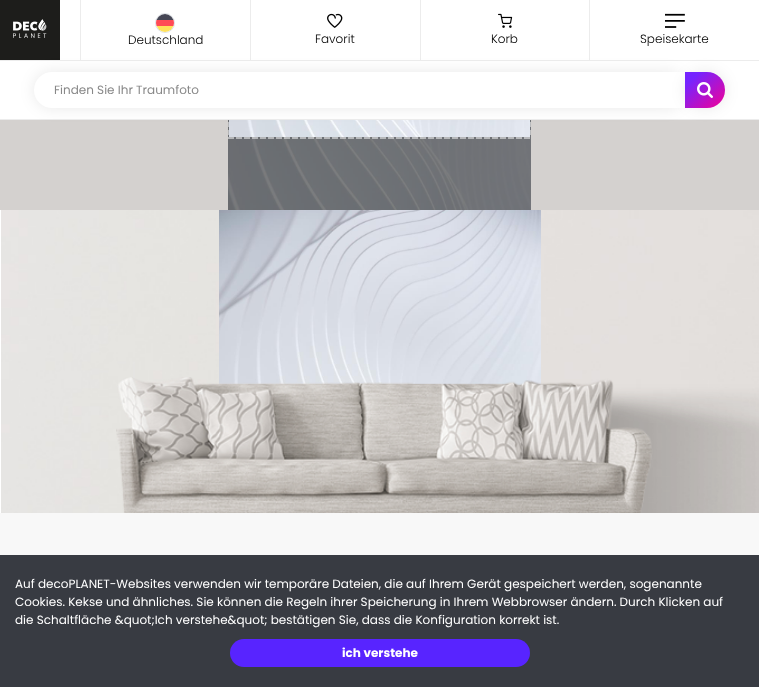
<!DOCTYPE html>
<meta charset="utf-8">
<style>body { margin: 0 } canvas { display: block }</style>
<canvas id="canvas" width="759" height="687"></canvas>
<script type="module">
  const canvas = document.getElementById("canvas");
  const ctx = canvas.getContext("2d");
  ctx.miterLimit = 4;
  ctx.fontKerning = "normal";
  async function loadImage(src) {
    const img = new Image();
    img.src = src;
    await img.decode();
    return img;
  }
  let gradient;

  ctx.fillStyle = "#f8f8f8";
  ctx.fillRect(0, 0, 759, 687);
  ctx.fillStyle = "#ffffff";
  ctx.fillRect(60, 0, 699, 60);
  ctx.drawImage(await loadImage("img1.png"), 0, 0, 60, 60);
  ctx.fillStyle = "#ececec";
  ctx.fillRect(250, 0, 1, 60);
  ctx.fillRect(420, 0, 1, 60);
  ctx.fillRect(589, 0, 1, 60);
  ctx.fillStyle = "#ffffff";
  ctx.fillRect(0, 61, 759, 58);
  ctx.fillStyle = "#ececec";
  ctx.fillRect(0, 60, 759, 1);
  ctx.fillRect(0, 119, 759, 1);
  ctx.fillStyle = "#d4d1cf";
  ctx.fillRect(0, 120, 759, 90);
  ctx.drawImage(await loadImage("img6.png"), 228, 120, 303, 90);
  ctx.fillStyle = "rgba(0, 0, 0, 0.5)";
  ctx.fillRect(228, 120, 1, 17);
  ctx.drawImage(await loadImage("img7.png"), 228, 122, 1, 13);
  ctx.fillRect(530, 120, 1, 17);
  ctx.drawImage(await loadImage("img8.png"), 530, 122, 1, 13);
  ctx.fillStyle = "rgba(0, 0, 0, 0.09)";
  ctx.filter = "blur(7.5px)";
  ctx.beginPath();
  ctx.roundRect(34, 72, 651, 36, 18);
  ctx.fill();
  ctx.filter = "none";
  ctx.fillStyle = "#ececec";
  ctx.fillRect(80, 0, 1, 60);
  ctx.beginPath();
  ctx.arc(165, 23, 9.5, 0, Math.PI * 2);
  ctx.strokeStyle = "#dee2e6";
  ctx.stroke();
  ctx.save();
  ctx.beginPath();
  ctx.roundRect(156, 14, 18, 18, 9);
  ctx.clip();
  ctx.fillStyle = "#464655";
  ctx.fillRect(156, 14, 18, 6);
  ctx.fillStyle = "#ffe15a";
  ctx.fillRect(156, 26, 18, 6);
  ctx.fillStyle = "#ff4b55";
  ctx.fillRect(156, 20, 18, 6);
  ctx.restore();
  ctx.font = "300 12px Poppins";
  ctx.fillStyle = "#000000";
  ctx.fillText("Deutschland", 128, 44);
  ctx.drawImage(await loadImage("img2.png"), 327, 13, 16, 15);
  ctx.fillText("Favorit", 315, 43);
  ctx.drawImage(await loadImage("img3.png"), 498, 13, 15, 15);
  ctx.fillText("Korb", 491, 43);
  ctx.drawImage(await loadImage("img4.png"), 665, 13, 20, 15);
  ctx.fillText("Speisekarte", 640, 43);
  ctx.fillStyle = "#ffffff";
  ctx.beginPath();
  ctx.roundRect(34, 72, 651, 36, [18, 0, 0, 18]);
  ctx.fill();
  ctx.font = "12px Poppins";
  ctx.fillStyle = "#888888";
  ctx.fillText("Finden Sie Ihr Traumfoto", 54, 94);
  ctx.fillStyle = "rgba(0, 0, 0, 0.09)";
  ctx.filter = "blur(7.5px)";
  ctx.beginPath();
  ctx.roundRect(685, 72, 40, 36, 18);
  ctx.fill();
  ctx.filter = "none";
  gradient = ctx.createLinearGradient(723, 110, 687, 70);
  gradient.addColorStop(0, "#f40096");
  gradient.addColorStop(0.82, "#7524ff");
  ctx.fillStyle = gradient;
  ctx.beginPath();
  ctx.roundRect(685, 72, 40, 36, [0, 18, 18, 0]);
  ctx.fill();
  ctx.drawImage(await loadImage("img5.png"), 697, 82, 16, 16);
  ctx.fillStyle = "rgba(0, 0, 0, 0.5)";
  ctx.fillRect(228, 137, 303, 73);
  ctx.drawImage(await loadImage("img9.png"), 228, 137, 302, 2);
  ctx.drawImage(await loadImage("img10.png"), 1, 210, 758, 303);
  ctx.fillStyle = "#ffffff";
  ctx.fillRect(0, 210, 1, 303);
  ctx.drawImage(await loadImage("img11.png"), 219, 210, 322, 177);
  ctx.drawImage(await loadImage("img12.png"), 116, 377, 643, 136);
  ctx.fillStyle = "#383b42";
  ctx.fillRect(0, 555, 759, 132);
  ctx.fillStyle = "#ffffff";
  ctx.fillText("Auf decoPLANET-Websites verwenden wir temporäre Dateien, die auf Ihrem Gerät gespeichert werden, sogenannte", 15, 588);
  ctx.fillText("Cookies. Kekse und ähnliches. Sie können die Regeln ihrer Speicherung in Ihrem Webbrowser ändern. Durch Klicken auf", 15, 606);
  ctx.fillText("die Schaltfläche &quot;Ich verstehe&quot; bestätigen Sie, dass die Konfiguration korrekt ist.", 15, 624);
  ctx.fillStyle = "#5824ff";
  ctx.beginPath();
  ctx.roundRect(230, 639, 300, 28, 14);
  ctx.fill();
  ctx.font = "bold 12px Poppins";
  ctx.fillStyle = "#ffffff";
  ctx.fillText("ich verstehe", 342, 657);
</script>
